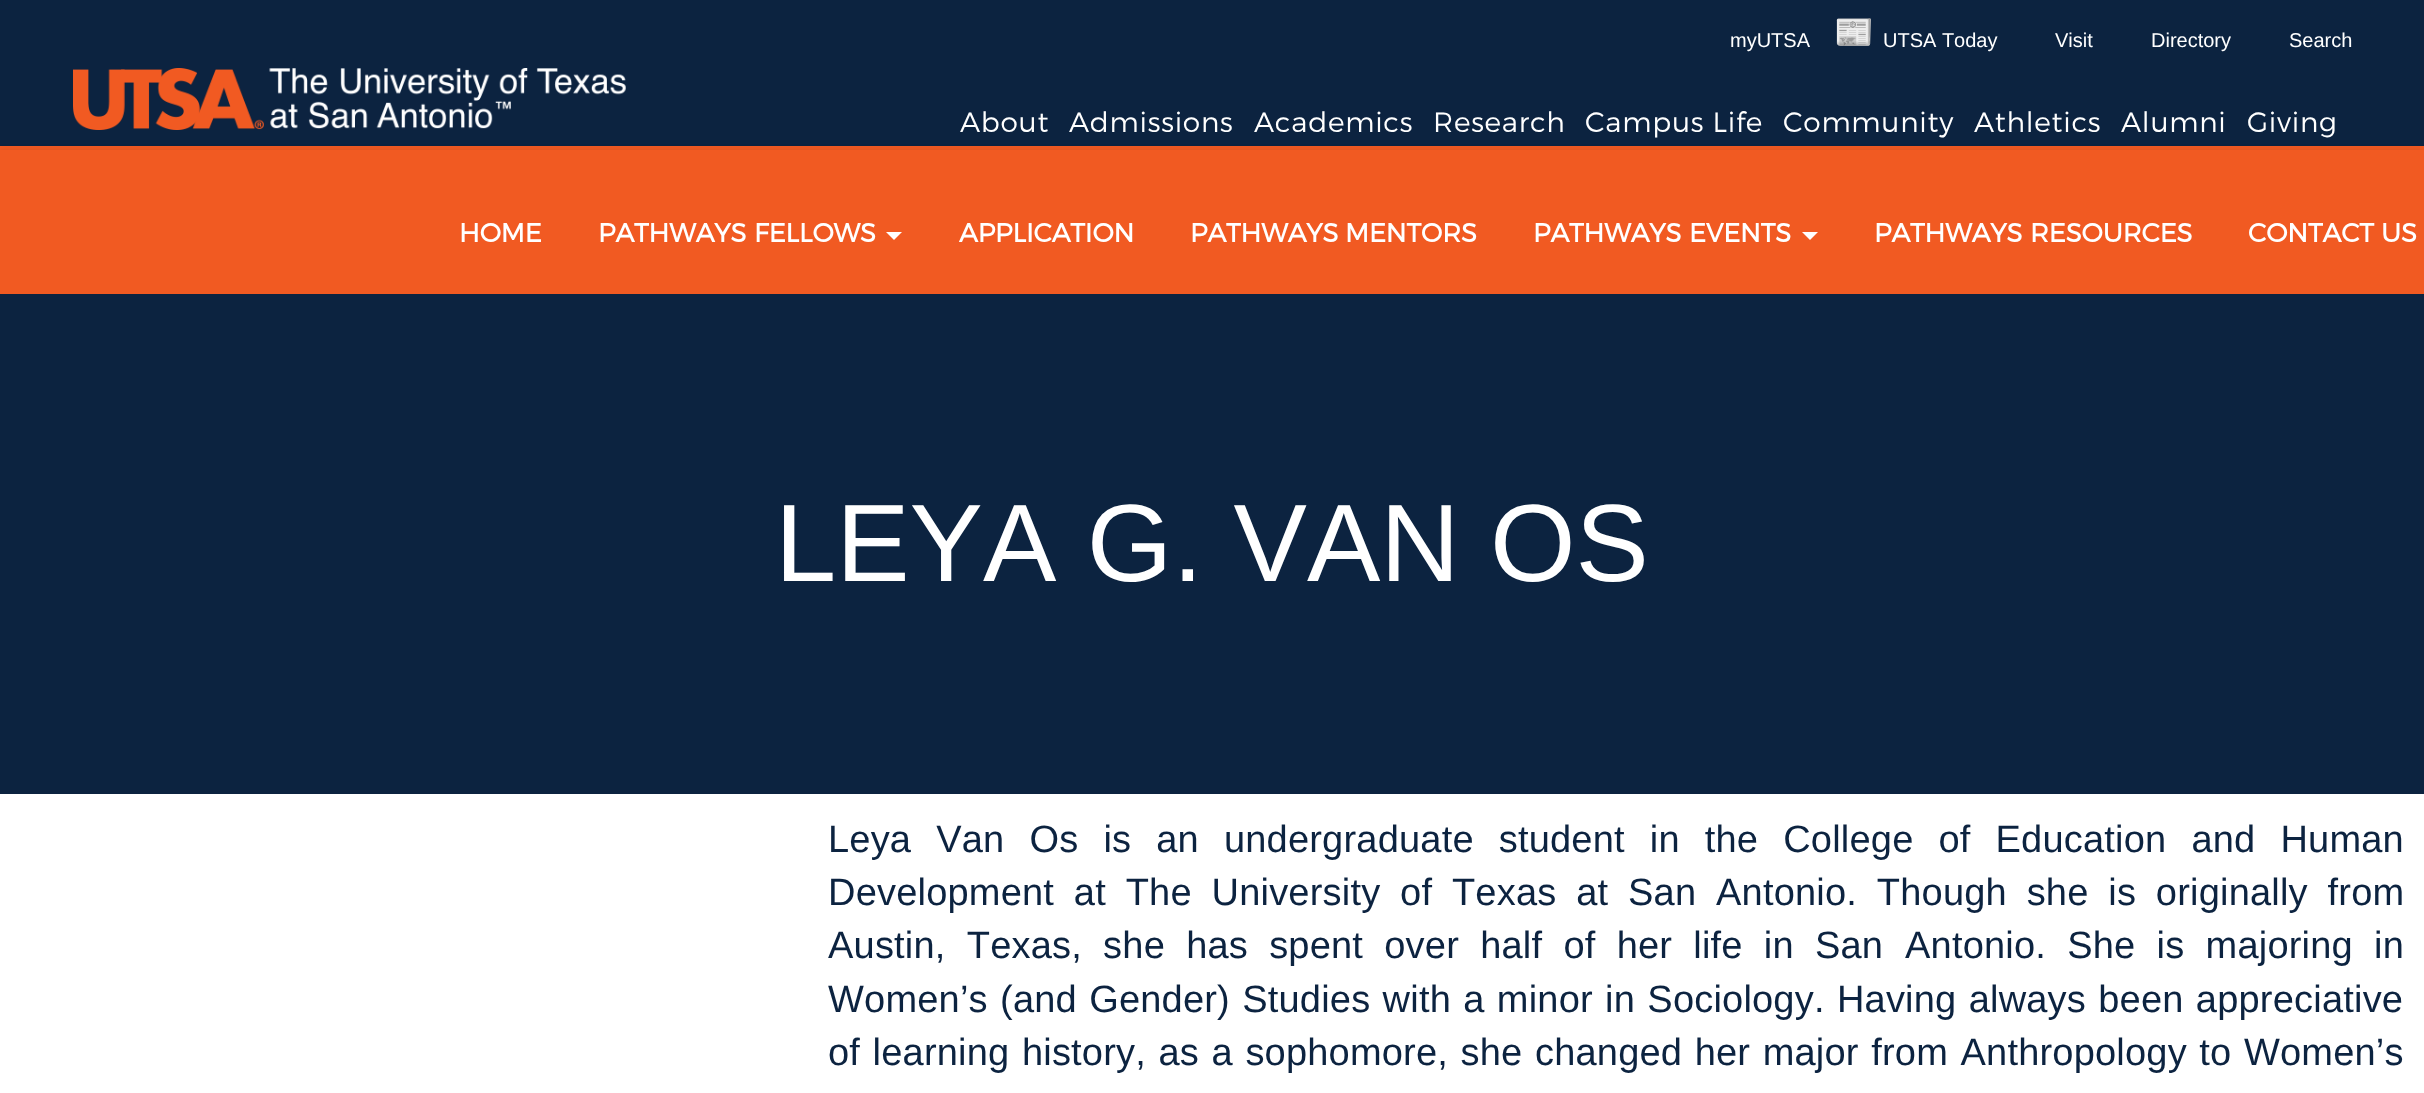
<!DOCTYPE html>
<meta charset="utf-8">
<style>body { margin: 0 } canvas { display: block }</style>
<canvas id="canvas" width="2424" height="1093"></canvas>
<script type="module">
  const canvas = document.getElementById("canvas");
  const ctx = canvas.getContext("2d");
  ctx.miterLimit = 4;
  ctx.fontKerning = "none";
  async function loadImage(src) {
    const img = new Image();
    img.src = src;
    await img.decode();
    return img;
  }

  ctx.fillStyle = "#ffffff";
  ctx.fillRect(0, 0, 2424, 1093);
  ctx.fillStyle = "#0c2340";
  ctx.fillRect(0, 0, 2424, 146);
  ctx.fillStyle = "#f15a22";
  ctx.fillRect(0, 146, 2424, 4);
  ctx.font = "20px Liberation Sans";
  ctx.fillStyle = "#ffffff";
  ctx.fillText("myUTSA", 1730, 47);
  ctx.font = "32px Noto Color Emoji";
  ctx.fillStyle = "#f15a22";
  ctx.fillText("📰", 1834, 43);
  ctx.font = "20px Liberation Sans";
  ctx.fillStyle = "#ffffff";
  ctx.fillText("UTSA Today", 1883, 47);
  ctx.fillText("Visit", 2055, 47);
  ctx.fillText("Directory", 2151, 47);
  ctx.fillText("Search", 2289, 47);
  ctx.drawImage(await loadImage("img1.png"), 73, 68, 553, 62);
  ctx.letterSpacing = "0.75px";
  ctx.font = "300 28px Montserrat";
  ctx.fillText("About", 960, 132);
  ctx.fillText("Admissions", 1069, 132);
  ctx.fillText("Academics", 1254, 132);
  ctx.fillText("Research", 1433, 132);
  ctx.fillText("Campus Life", 1585, 132);
  ctx.fillText("Community", 1783, 132);
  ctx.fillText("Athletics", 1974, 132);
  ctx.fillText("Alumni", 2121, 132);
  ctx.fillText("Giving", 2247, 132);
  ctx.fillStyle = "rgba(0, 0, 0, 0.1)";
  ctx.filter = "blur(3px)";
  ctx.beginPath();
  ctx.rect(0, 150, 2424, 144);
  ctx.fill();
  ctx.filter = "none";
  ctx.fillStyle = "#f15a22";
  ctx.fillRect(0, 150, 2424, 144);
  ctx.letterSpacing = "0px";
  ctx.font = "bold 26px Montserrat";
  ctx.fillStyle = "#ffffff";
  ctx.fillText("HOME", 459, 242);
  ctx.fillText("PATHWAYS", 598, 242);
  ctx.fillText("FELLOWS", 754, 242);
  ctx.beginPath();
  ctx.moveTo(886, 232);
  ctx.lineTo(902, 232);
  ctx.lineTo(894, 240);
  ctx.closePath();
  ctx.fill();
  ctx.fillText("APPLICATION", 959, 242);
  ctx.fillText("PATHWAYS", 1190, 242);
  ctx.fillText("MENTORS", 1345, 242);
  ctx.fillText("PATHWAYS", 1533, 242);
  ctx.fillText("EVENTS", 1689, 242);
  ctx.beginPath();
  ctx.moveTo(1802, 232);
  ctx.lineTo(1818, 232);
  ctx.lineTo(1810, 240);
  ctx.closePath();
  ctx.fill();
  ctx.fillText("PATHWAYS", 1874, 242);
  ctx.fillText("RESOURCES", 2030, 242);
  ctx.fillText("CONTACT US", 2248, 242);
  ctx.fillStyle = "#0c2340";
  ctx.fillRect(0, 294, 2424, 500);
  ctx.font = "110px Liberation Sans";
  ctx.fillStyle = "#ffffff";
  ctx.fillText("LEYA G. VAN", 775, 581);
  ctx.fillText("OS", 1490, 581);
  ctx.letterSpacing = "0.2px";
  ctx.wordSpacing = "14.25px";
  ctx.font = "38px Liberation Sans";
  ctx.fillStyle = "#0c2340";
  ctx.fillText("Leya Van Os is an undergraduate student in the College of Education and Human", 828, 852);
  ctx.wordSpacing = "9px";
  ctx.fillText("Development at The University of Texas at San", 828, 905);
  ctx.fillText("Antonio. Though she is originally from", 1716, 905);
  ctx.wordSpacing = "10.4px";
  ctx.fillText("Austin, Texas, she has spent over half of her life in San", 828, 958);
  ctx.fillText("Antonio. She is majoring in", 1905, 958);
  ctx.wordSpacing = "1.5px";
  ctx.fillText("Women’s (and Gender) Studies with a minor in Sociology. Having always been appreciative", 828, 1012);
  ctx.wordSpacing = "1.75px";
  ctx.fillText("of learning history, as a sophomore, she changed her major from Anthropology to Women’s", 828, 1065);
</script>
